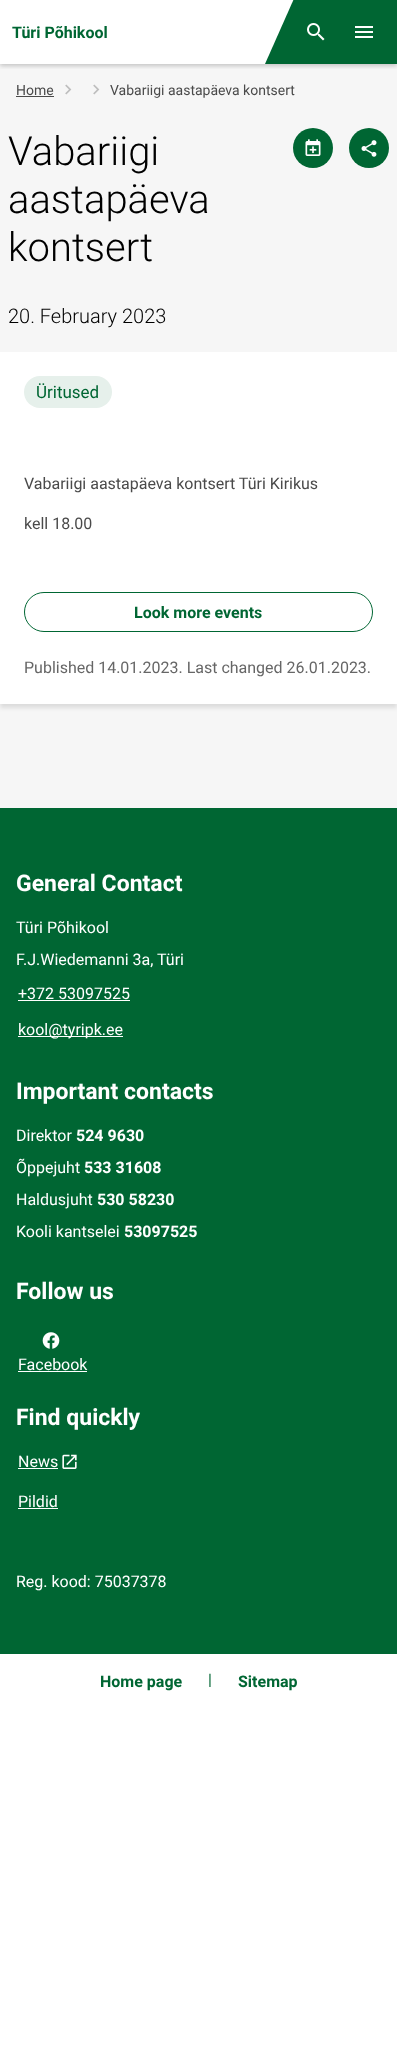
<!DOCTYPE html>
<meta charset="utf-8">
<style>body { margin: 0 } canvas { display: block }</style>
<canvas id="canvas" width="397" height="2050"></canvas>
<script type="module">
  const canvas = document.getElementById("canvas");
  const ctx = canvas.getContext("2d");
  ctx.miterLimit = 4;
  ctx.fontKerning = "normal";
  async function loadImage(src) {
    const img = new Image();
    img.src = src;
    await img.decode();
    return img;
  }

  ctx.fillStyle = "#ffffff";
  ctx.fillRect(0, 0, 397, 2050);
  ctx.fillStyle = "#f6f6f6";
  ctx.fillRect(0, 64, 397, 744);
  ctx.save();
  ctx.beginPath();
  ctx.rect(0, 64, 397, 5);
  ctx.clip();
  ctx.fillStyle = "rgba(0, 0, 0, 0.2)";
  ctx.filter = "blur(2px)";
  ctx.beginPath();
  ctx.rect(0, 2, 397, 64);
  ctx.fill();
  ctx.filter = "none";
  ctx.restore();
  ctx.font = "bold 16px Roboto";
  ctx.fillStyle = "#006633";
  ctx.fillText("Türi Põhikool", 12, 38);
  ctx.fillRect(265, 0, 132, 64);
  ctx.fillStyle = "#ffffff";
  ctx.beginPath();
  ctx.moveTo(254, -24);
  ctx.lineTo(304, -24);
  ctx.lineTo(265, 64);
  ctx.lineTo(215, 64);
  ctx.closePath();
  ctx.fill();
  ctx.drawImage(await loadImage("img1.png"), 307, 23, 18, 18);
  ctx.drawImage(await loadImage("img2.png"), 355, 26, 18, 12);
  ctx.font = "14px Roboto";
  ctx.fillStyle = "#4a4a4a";
  ctx.fillText("Home", 16, 95);
  ctx.fillRect(16, 96, 38, 1);
  ctx.drawImage(await loadImage("img3.png"), 65, 84, 7, 11);
  ctx.drawImage(await loadImage("img3.png"), 93, 84, 7, 11);
  ctx.fillText("Vabariigi aastapäeva kontsert", 110, 95);
  ctx.font = "300 40px Roboto";
  ctx.fillStyle = "#000000";
  ctx.fillText("Vabariigi", 8, 165);
  ctx.fillText("aastapäeva", 8, 213);
  ctx.fillText("kontsert", 8, 261);
  ctx.fillStyle = "#006633";
  ctx.beginPath();
  ctx.arc(313, 148, 20, 0, Math.PI * 2);
  ctx.fill();
  ctx.drawImage(await loadImage("img4.png"), 305, 139, 16, 17);
  ctx.beginPath();
  ctx.arc(369, 148, 20, 0, Math.PI * 2);
  ctx.fill();
  ctx.drawImage(await loadImage("img5.png"), 361, 140, 16, 17);
  ctx.font = "300 20px Roboto";
  ctx.fillStyle = "#000000";
  ctx.fillText("20. February 2023", 8, 323);
  ctx.fillStyle = "rgba(0, 0, 0, 0.1)";
  ctx.filter = "blur(2px)";
  ctx.beginPath();
  ctx.rect(0, 356, 397, 352);
  ctx.fill();
  ctx.filter = "none";
  ctx.fillStyle = "#ffffff";
  ctx.fillRect(0, 352, 397, 352);
  ctx.fillStyle = "#e6f0eb";
  ctx.beginPath();
  ctx.roundRect(24, 376, 88, 32, 16);
  ctx.fill();
  ctx.font = "17px Roboto";
  ctx.fillStyle = "#006633";
  ctx.fillText("Üritused", 36, 398);
  ctx.font = "16px Roboto";
  ctx.fillStyle = "#4a4a4a";
  ctx.fillText("Vabariigi aastapäeva kontsert Türi Kirikus", 24, 489);
  ctx.fillText("kell 18.00", 24, 529);
  ctx.beginPath();
  ctx.roundRect(24.5, 592.5, 348, 39, 19.5);
  ctx.strokeStyle = "#006633";
  ctx.stroke();
  ctx.font = "bold 16px Roboto";
  ctx.fillStyle = "#006633";
  ctx.fillText("Look more events", 134, 618);
  ctx.font = "16px Roboto";
  ctx.fillStyle = "#666666";
  ctx.fillText("Published 14.01.2023. Last changed 26.01.2023.", 24, 673);
  ctx.fillStyle = "#006633";
  ctx.fillRect(0, 808, 397, 846);
  ctx.font = "bold 23px Roboto";
  ctx.fillStyle = "#ffffff";
  ctx.fillText("General Contact", 16, 891);
  ctx.font = "16px Roboto";
  ctx.fillText("Türi Põhikool", 16, 933);
  ctx.fillText("F.J.Wiedemanni 3a, Türi", 16, 965);
  ctx.fillText("+372 53097525", 18, 999);
  ctx.fillRect(18, 1000, 112, 1);
  ctx.fillRect(18, 1036, 105, 1);
  ctx.fillText("kool@tyripk.ee", 18, 1035);
  ctx.font = "bold 23px Roboto";
  ctx.fillText("Important contacts", 16, 1099);
  ctx.font = "16px Roboto";
  ctx.fillText("Direktor", 16, 1141);
  ctx.font = "bold 16px Roboto";
  ctx.fillText("524 9630", 76, 1141);
  ctx.font = "16px Roboto";
  ctx.fillText("Õppejuht", 16, 1173);
  ctx.font = "bold 16px Roboto";
  ctx.fillText("533 31608", 84, 1173);
  ctx.font = "16px Roboto";
  ctx.fillText("Haldusjuht", 16, 1205);
  ctx.font = "bold 16px Roboto";
  ctx.fillText("530 58230", 97, 1205);
  ctx.font = "16px Roboto";
  ctx.fillText("Kooli kantselei", 16, 1237);
  ctx.font = "bold 16px Roboto";
  ctx.fillText("53097525", 124, 1237);
  ctx.font = "bold 23px Roboto";
  ctx.fillText("Follow us", 16, 1299);
  ctx.drawImage(await loadImage("img6.png"), 42, 1332, 18, 17);
  ctx.font = "16px Roboto";
  ctx.fillText("Facebook", 18, 1370);
  ctx.fillRect(18, 1371, 69, 1);
  ctx.font = "bold 23px Roboto";
  ctx.fillText("Find quickly", 16, 1425);
  ctx.font = "16px Roboto";
  ctx.fillText("News", 18, 1467);
  ctx.fillRect(18, 1468, 40, 1);
  ctx.drawImage(await loadImage("img7.png"), 62, 1454, 15, 15);
  ctx.fillText("Pildid", 18, 1507);
  ctx.fillRect(18, 1508, 40, 1);
  ctx.fillText("Reg. kood: 75037378", 16, 1587);
  ctx.font = "bold 16px Roboto";
  ctx.fillStyle = "#006633";
  ctx.fillText("Home page", 100, 1687);
  ctx.font = "16px Roboto";
  ctx.fillText("|", 208, 1685);
  ctx.font = "bold 16px Roboto";
  ctx.fillText("Sitemap", 238, 1687);
</script>
